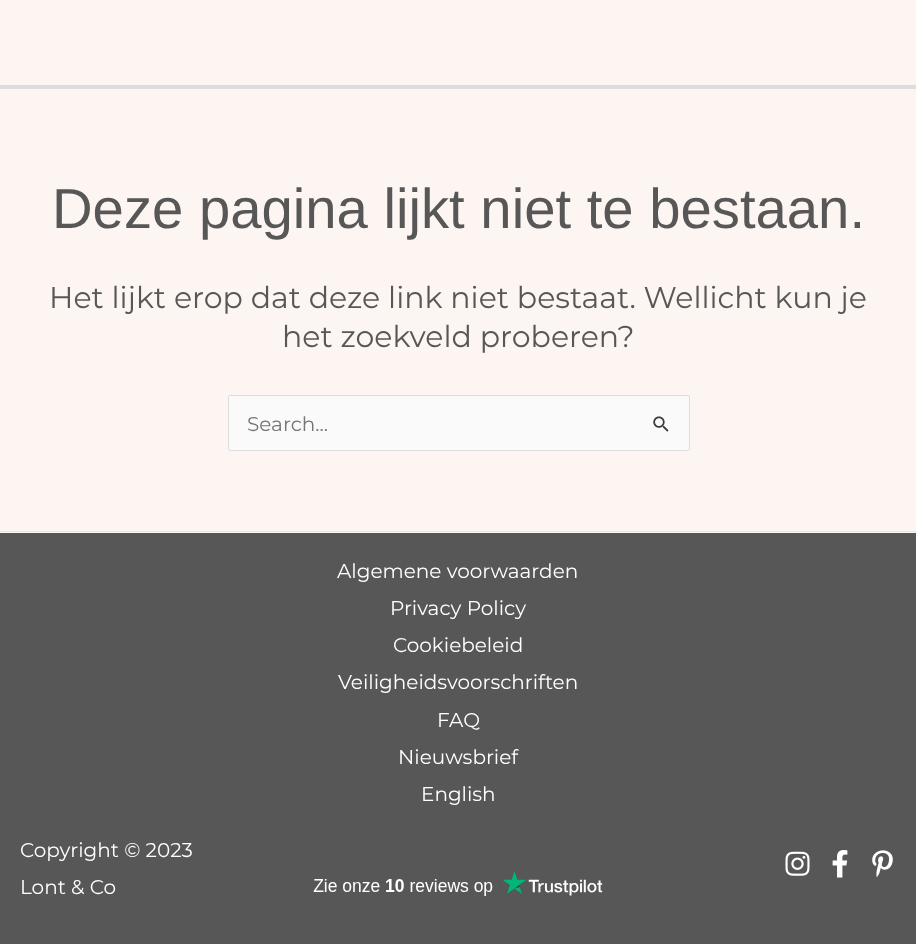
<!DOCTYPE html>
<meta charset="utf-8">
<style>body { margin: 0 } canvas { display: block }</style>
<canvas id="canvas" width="916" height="944"></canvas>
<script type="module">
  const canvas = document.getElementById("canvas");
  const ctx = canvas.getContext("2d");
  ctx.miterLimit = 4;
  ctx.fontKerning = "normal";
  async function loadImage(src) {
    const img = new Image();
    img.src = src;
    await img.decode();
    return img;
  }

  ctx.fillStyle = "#fcf5f2";
  ctx.fillRect(0, 0, 916, 944);
  ctx.fillStyle = "#dddddd";
  ctx.fillRect(0, 85, 916, 4);
  ctx.font = "56.25px Liberation Sans";
  ctx.fillStyle = "#575757";
  ctx.fillText("Deze pagina lijkt niet te bestaan.", 52, 228);
  ctx.font = "30px Montserrat";
  ctx.fillText("Het lijkt erop dat deze link niet bestaat. Wellicht kun je", 49, 308);
  ctx.fillText("het zoekveld proberen?", 282, 347);
  ctx.fillStyle = "#fafafa";
  ctx.beginPath();
  ctx.roundRect(228.5, 395.5, 461, 55, 2);
  ctx.fill();
  ctx.strokeStyle = "#dddddd";
  ctx.stroke();
  ctx.font = "20px Montserrat";
  ctx.fillStyle = "#757575";
  ctx.fillText("Search...", 247, 431);
  ctx.drawImage(await loadImage("img1.png"), 653, 416, 16, 16);
  ctx.fillStyle = "#575757";
  ctx.fillRect(0, 533, 916, 411);
  ctx.fillStyle = "#e6e6e6";
  ctx.fillRect(0, 531, 916, 1);
  ctx.fillStyle = "#ffffff";
  ctx.fillText("Algemene voorwaarden", 337, 578);
  ctx.fillText("Privacy Policy", 390, 615);
  ctx.fillText("Cookiebeleid", 393, 652);
  ctx.fillText("Veiligheidsvoorschriften", 338, 689);
  ctx.fillText("FAQ", 437, 727);
  ctx.fillText("Nieuwsbrief", 398, 764);
  ctx.fillText("English", 421, 801);
  ctx.fillText("Copyright © 2023", 20, 857);
  ctx.fillText("Lont & Co", 20, 894);
  ctx.drawImage(await loadImage("img2.png"), 785, 851, 25, 25);
  ctx.drawImage(await loadImage("img3.png"), 832, 850, 16, 28);
  ctx.drawImage(await loadImage("img4.png"), 872, 850, 21, 28);
  ctx.drawImage(await loadImage("img5.png"), 313, 871, 290, 25);
</script>
